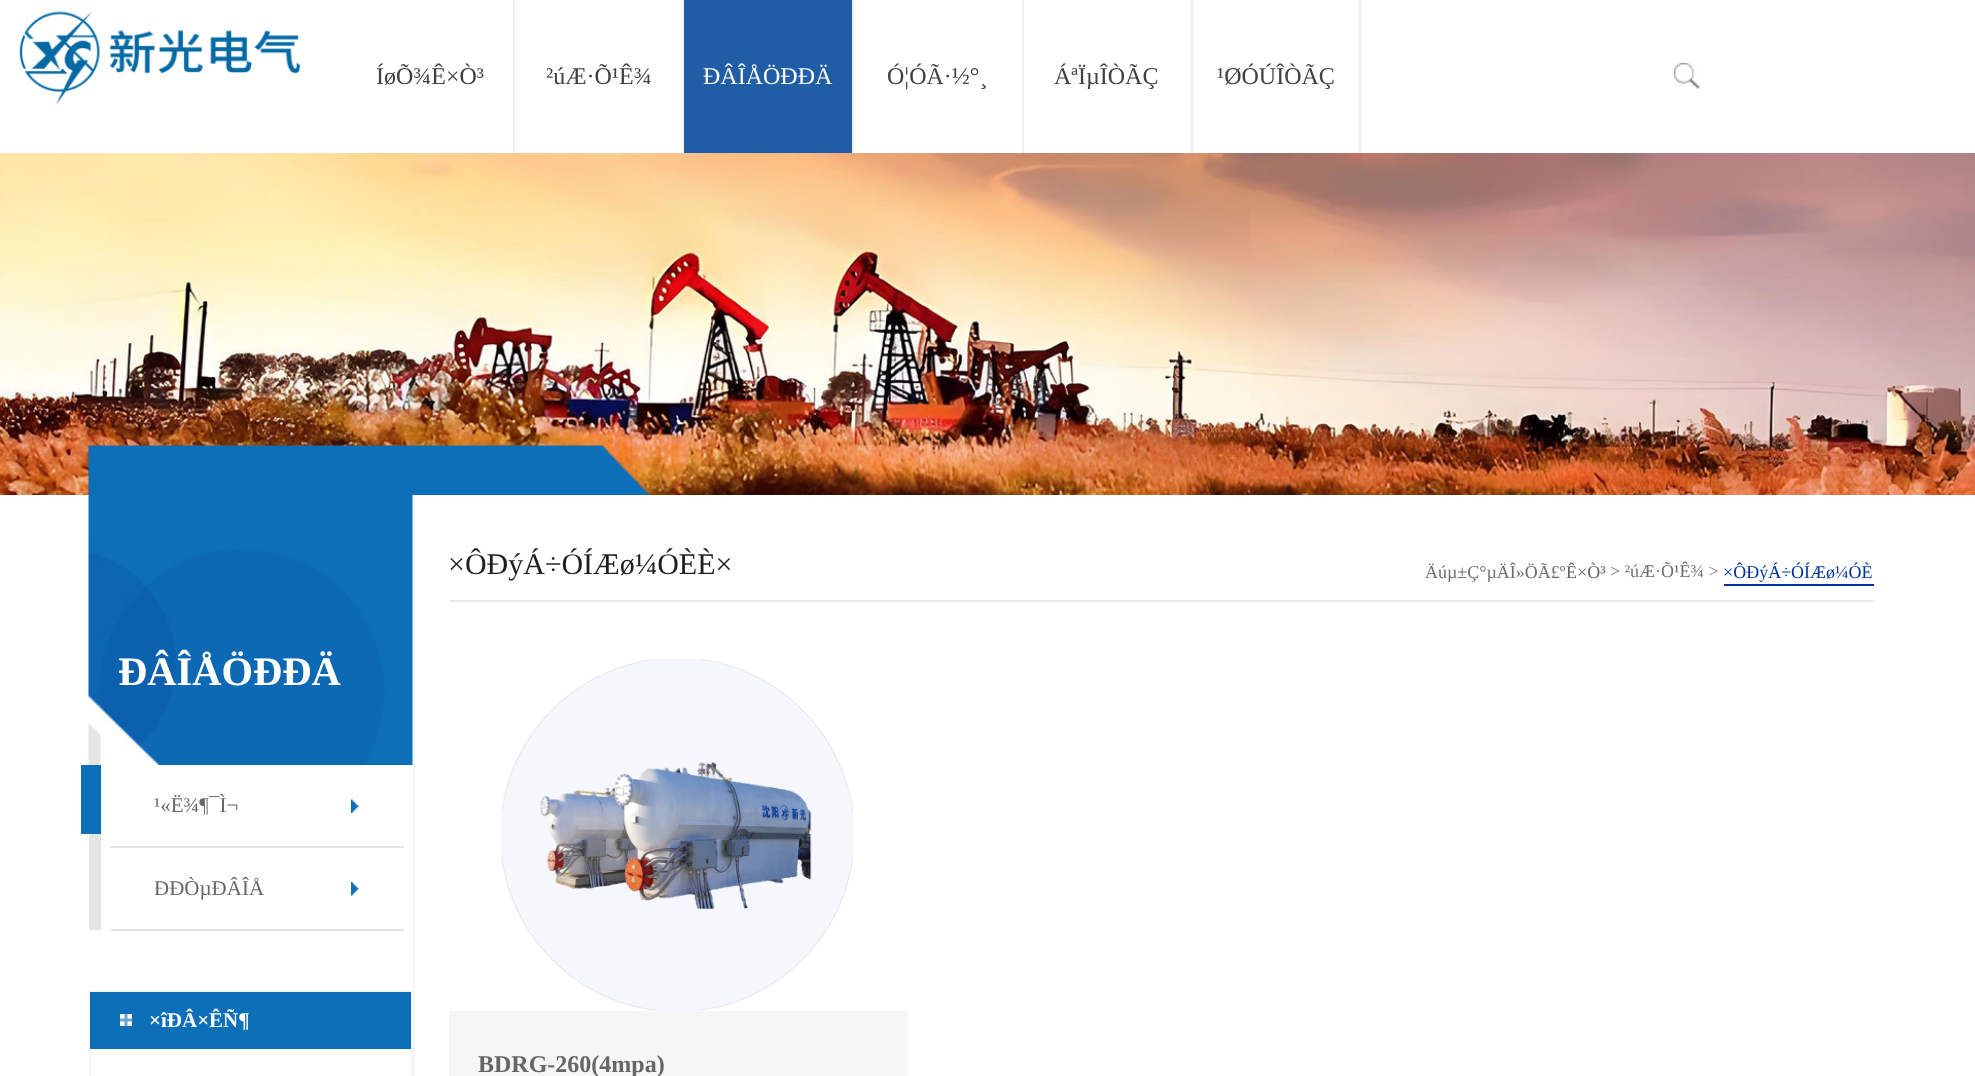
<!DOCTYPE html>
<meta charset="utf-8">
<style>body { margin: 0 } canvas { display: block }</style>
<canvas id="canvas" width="1975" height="1076"></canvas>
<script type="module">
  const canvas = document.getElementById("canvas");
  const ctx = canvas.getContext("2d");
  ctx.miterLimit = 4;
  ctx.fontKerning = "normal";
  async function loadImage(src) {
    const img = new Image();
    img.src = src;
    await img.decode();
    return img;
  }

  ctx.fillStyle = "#ffffff";
  ctx.fillRect(0, 0, 1975, 1076);
  ctx.drawImage(await loadImage("img1.png"), 19, 11, 282, 94);
  ctx.fillStyle = "#eeeeee";
  ctx.fillRect(513, 0, 2, 153);
  ctx.font = "24px Liberation Serif";
  ctx.fillStyle = "#404040";
  ctx.fillText("ÍøÕ¾Ê×Ò³", 376, 84);
  ctx.fillStyle = "#eeeeee";
  ctx.fillRect(683, 0, 1, 153);
  ctx.fillStyle = "#404040";
  ctx.fillText("²úÆ·Õ¹Ê¾", 546, 84);
  ctx.fillStyle = "#205da5";
  ctx.fillRect(684, 0, 168, 153);
  ctx.fillStyle = "#eeeeee";
  ctx.fillRect(852, 0, 2, 153);
  ctx.fillStyle = "#ffffff";
  ctx.fillText("ÐÂÎÅÖÐÐÄ", 703, 84);
  ctx.fillStyle = "#eeeeee";
  ctx.fillRect(1022, 0, 2, 153);
  ctx.fillStyle = "#404040";
  ctx.fillText("Ó¦ÓÃ·½°¸", 887, 84);
  ctx.fillStyle = "#eeeeee";
  ctx.fillRect(1191, 0, 2, 153);
  ctx.fillStyle = "#404040";
  ctx.fillText("ÁªÏµÎÒÃÇ", 1054, 84);
  ctx.fillStyle = "#eeeeee";
  ctx.fillRect(1359, 0, 2, 153);
  ctx.fillStyle = "#404040";
  ctx.fillText("¹ØÓÚÎÒÃÇ", 1217, 84);
  ctx.drawImage(await loadImage("img2.png"), 1674, 63, 26, 26);
  ctx.drawImage(await loadImage("img3.png"), 0, 153, 1975, 342);
  ctx.fillStyle = "#f5f5f5";
  ctx.fillRect(413, 495, 2, 581);
  ctx.drawImage(await loadImage("img4.png"), 88, 495, 325, 270);
  ctx.drawImage(await loadImage("img5.png"), 88, 445, 562, 50);
  ctx.font = "bold 40.5px Liberation Serif";
  ctx.fillStyle = "#ffffff";
  ctx.fillText("ÐÂÎÅÖÐÐÄ", 118, 685);
  ctx.fillStyle = "#e5e5e5";
  ctx.fillRect(89, 834, 12, 96);
  ctx.fillStyle = "#0d6fb8";
  ctx.fillRect(81, 765, 20, 69);
  ctx.fillStyle = "#e5e5e5";
  ctx.fillRect(110, 846, 294, 2);
  ctx.drawImage(await loadImage("img6.png"), 351, 799, 8, 14);
  ctx.font = "21px Liberation Serif";
  ctx.fillStyle = "#666666";
  ctx.fillText("¹«Ë¾¶¯Ì¬", 154, 812);
  ctx.fillStyle = "#e5e5e5";
  ctx.fillRect(110, 929, 294, 2);
  ctx.drawImage(await loadImage("img7.png"), 351, 882, 8, 14);
  ctx.save();
  ctx.beginPath();
  ctx.rect(155, 848, 204, 81);
  ctx.clip();
  ctx.fillStyle = "#666666";
  ctx.fillText("ÐÐÒµÐÂÎÅ", 154, 895);
  ctx.restore();
  ctx.strokeStyle = "#f5f5f5";
  ctx.lineWidth = 2;
  ctx.strokeRect(90, 991, 322, 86);
  ctx.fillStyle = "#0d6fb8";
  ctx.fillRect(90, 992, 321, 57);
  ctx.drawImage(await loadImage("img8.png"), 120, 1014, 12, 12);
  ctx.font = "bold 21px Liberation Serif";
  ctx.fillStyle = "#ffffff";
  ctx.fillText("×îÐÂ×ÊÑ¶", 149, 1027);
  ctx.fillStyle = "#eaeaea";
  ctx.fillRect(449, 600, 1425, 2);
  ctx.font = "30px Liberation Serif";
  ctx.fillStyle = "#1f1f1f";
  ctx.fillText("×ÔÐýÁ÷ÓÍÆø¼ÓÈÈ×", 448, 574);
  ctx.font = "18px Liberation Serif";
  ctx.fillStyle = "#6e6e6e";
  ctx.fillText("Äúµ±Ç°µÄÎ»ÖÃ£º", 1425, 578);
  ctx.fillStyle = "#666666";
  ctx.fillText("Ê×Ò³", 1566, 578);
  ctx.fillStyle = "#6e6e6e";
  ctx.fillText("> ²úÆ·Õ¹Ê¾ >", 1610, 577);
  ctx.fillStyle = "#0033a1";
  ctx.fillRect(1724, 584, 150, 2);
  ctx.fillText("×ÔÐýÁ÷ÓÍÆø¼ÓÈ", 1723, 578);
  ctx.drawImage(await loadImage("img9.png"), 501, 659, 353, 352);
  ctx.fillStyle = "#f6f6f6";
  ctx.fillRect(449, 1011, 459, 65);
  ctx.font = "bold 24px Liberation Serif";
  ctx.fillStyle = "#666666";
  ctx.fillText("BDRG-260(4mpa)", 478, 1072);
</script>
